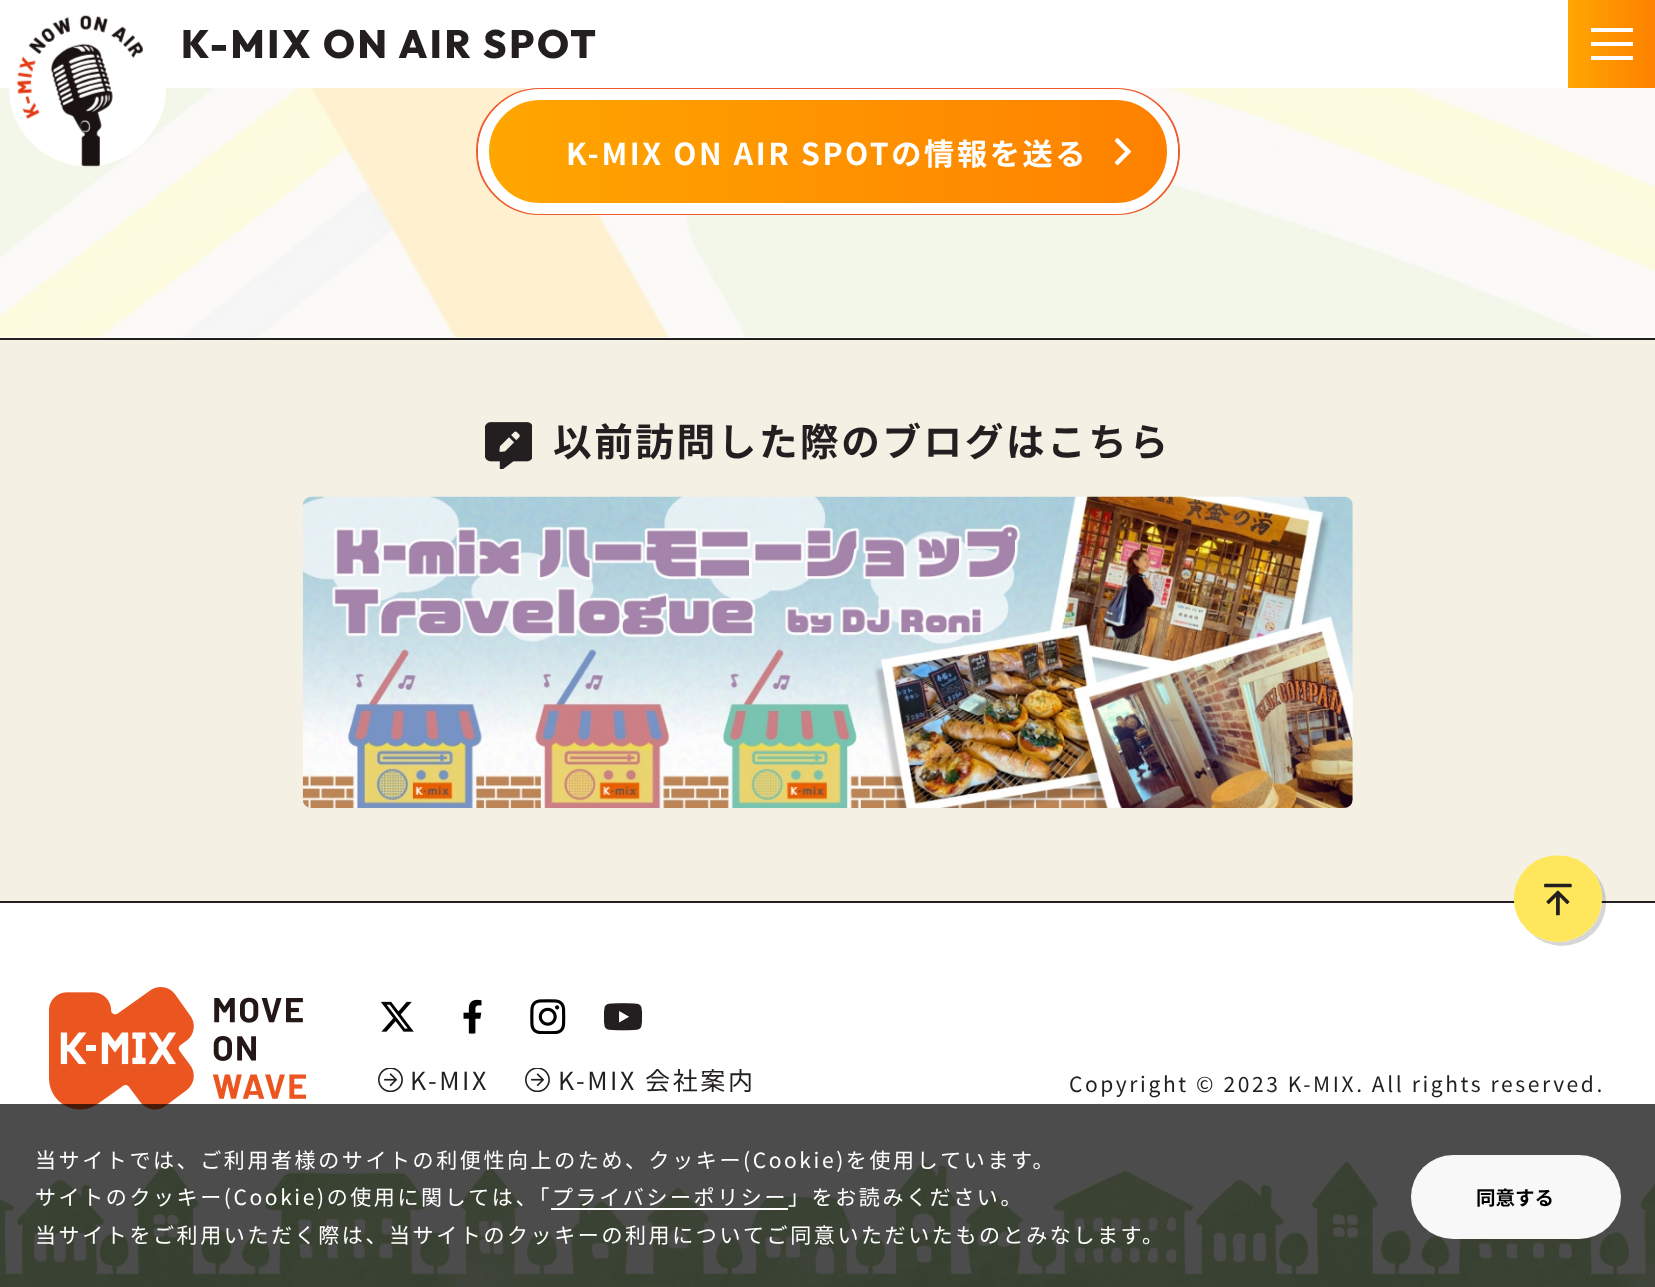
<!DOCTYPE html>
<meta charset="utf-8">
<style>body { margin: 0 } canvas { display: block }</style>
<canvas id="canvas" width="1655" height="1287"></canvas>
<script type="module">
  const canvas = document.getElementById("canvas");
  const ctx = canvas.getContext("2d");
  ctx.miterLimit = 4;
  ctx.fontKerning = "normal";
  async function loadImage(src) {
    const img = new Image();
    img.src = src;
    await img.decode();
    return img;
  }
  let gradient;

  ctx.fillStyle = "#ffffff";
  ctx.fillRect(0, 0, 1655, 1287);
  ctx.drawImage(await loadImage("img2.png"), 0, 88, 1655, 250);
  ctx.drawImage(await loadImage("img1.png"), 8, 15, 158, 152);
  ctx.letterSpacing = "2.6px";
  ctx.font = "800 39.4px Outfit";
  ctx.fillStyle = "#231f20";
  ctx.fillText("K-MIX ON AIR SPOT", 181, 58);
  gradient = ctx.createLinearGradient(1568, 44, 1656, 44);
  gradient.addColorStop(0, "#ffa600");
  gradient.addColorStop(1, "#fe8100");
  ctx.fillStyle = gradient;
  ctx.fillRect(1568, 0, 87, 88);
  ctx.fillStyle = "#ffffff";
  ctx.fillRect(1591, 28, 42, 4);
  ctx.fillRect(1591, 42, 42, 4);
  ctx.fillRect(1591, 56, 42, 4);
  ctx.fillStyle = "#231f20";
  ctx.fillRect(0, 338, 1655, 2);
  ctx.beginPath();
  ctx.roundRect(477, 89, 702, 125, 62.5);
  ctx.strokeStyle = "#f15a32";
  ctx.lineWidth = 2;
  ctx.stroke();
  ctx.save();
  ctx.beginPath();
  ctx.roundRect(478, 89, 700, 125, 62.5);
  ctx.clip();
  gradient = ctx.createLinearGradient(488, 151, 1167, 151);
  gradient.addColorStop(0, "#ffa600");
  gradient.addColorStop(1, "#fe8100");
  ctx.fillStyle = gradient;
  ctx.fillRect(488, 89, 679, 125);
  ctx.restore();
  ctx.beginPath();
  ctx.roundRect(483.5, 94.5, 689, 114, 57);
  ctx.strokeStyle = "#ffffff";
  ctx.lineWidth = 11;
  ctx.stroke();
  ctx.font = "bold 30.2px Noto Sans JP";
  ctx.fillStyle = "#ffffff";
  ctx.fillText("K-MIX ON AIR SPOTの情報を送る", 566, 165);
  ctx.drawImage(await loadImage("img3.png"), 1115, 138, 16, 28);
  ctx.fillStyle = "#f4f0e4";
  ctx.fillRect(0, 340, 1655, 561);
  ctx.fillStyle = "#231f20";
  ctx.fillRect(0, 901, 1655, 2);
  ctx.drawImage(await loadImage("img4.png"), 485, 422, 47, 47);
  ctx.font = "bold 38.6px Noto Sans JP";
  ctx.fillText("以前訪問した際のブログはこちら", 553, 456);
  ctx.drawImage(await loadImage("img5.png"), 302, 496, 1051, 312);
  ctx.drawImage(await loadImage("img6.png"), 1514, 855, 92, 91);
  ctx.drawImage(await loadImage("img7.png"), 49, 987, 257, 123);
  ctx.drawImage(await loadImage("img8.png"), 380, 1001, 34, 31);
  ctx.drawImage(await loadImage("img9.png"), 463, 999, 19, 35);
  ctx.drawImage(await loadImage("img10.png"), 530, 999, 36, 35);
  ctx.drawImage(await loadImage("img11.png"), 604, 1003, 38, 28);
  ctx.drawImage(await loadImage("img12.png"), 378, 1068, 25, 24);
  ctx.font = "25px Noto Sans JP";
  ctx.fillText("K-MIX", 410, 1090);
  ctx.drawImage(await loadImage("img12.png"), 525, 1068, 25, 24);
  ctx.fillText("K-MIX 会社案内", 558, 1090);
  ctx.font = "21px Noto Sans JP";
  ctx.fillText("Copyright © 2023 K-MIX. All rights reserved.", 1069, 1092);
  ctx.drawImage(await loadImage("img13.png"), 0, 1161, 1655, 126);
  ctx.fillStyle = "rgba(0, 0, 0, 0.7)";
  ctx.fillRect(0, 1104, 1655, 183);
  ctx.fillStyle = "#ffffff";
  ctx.fillText("当サイトでは、ご利用者様のサイトの利便性向上のため、クッキー(Cookie)を使用しています。", 35, 1168);
  ctx.fillText("サイトのクッキー(Cookie)の使用に関しては、「", 35, 1205);
  ctx.fillText("プライバシーポリシー」をお読みください。", 552, 1205);
  ctx.fillRect(551, 1208, 237, 2);
  ctx.fillText("当サイトをご利用いただく際は、当サイトのクッキーの利用についてご同意いただいたものとみなします。", 35, 1243);
  ctx.fillStyle = "#f8f8f8";
  ctx.beginPath();
  ctx.roundRect(1411, 1155, 210, 84, 42);
  ctx.fill();
  ctx.letterSpacing = "0px";
  ctx.font = "bold 19.5px Noto Sans JP";
  ctx.fillStyle = "#000000";
  ctx.fillText("同意する", 1476, 1205);
</script>
